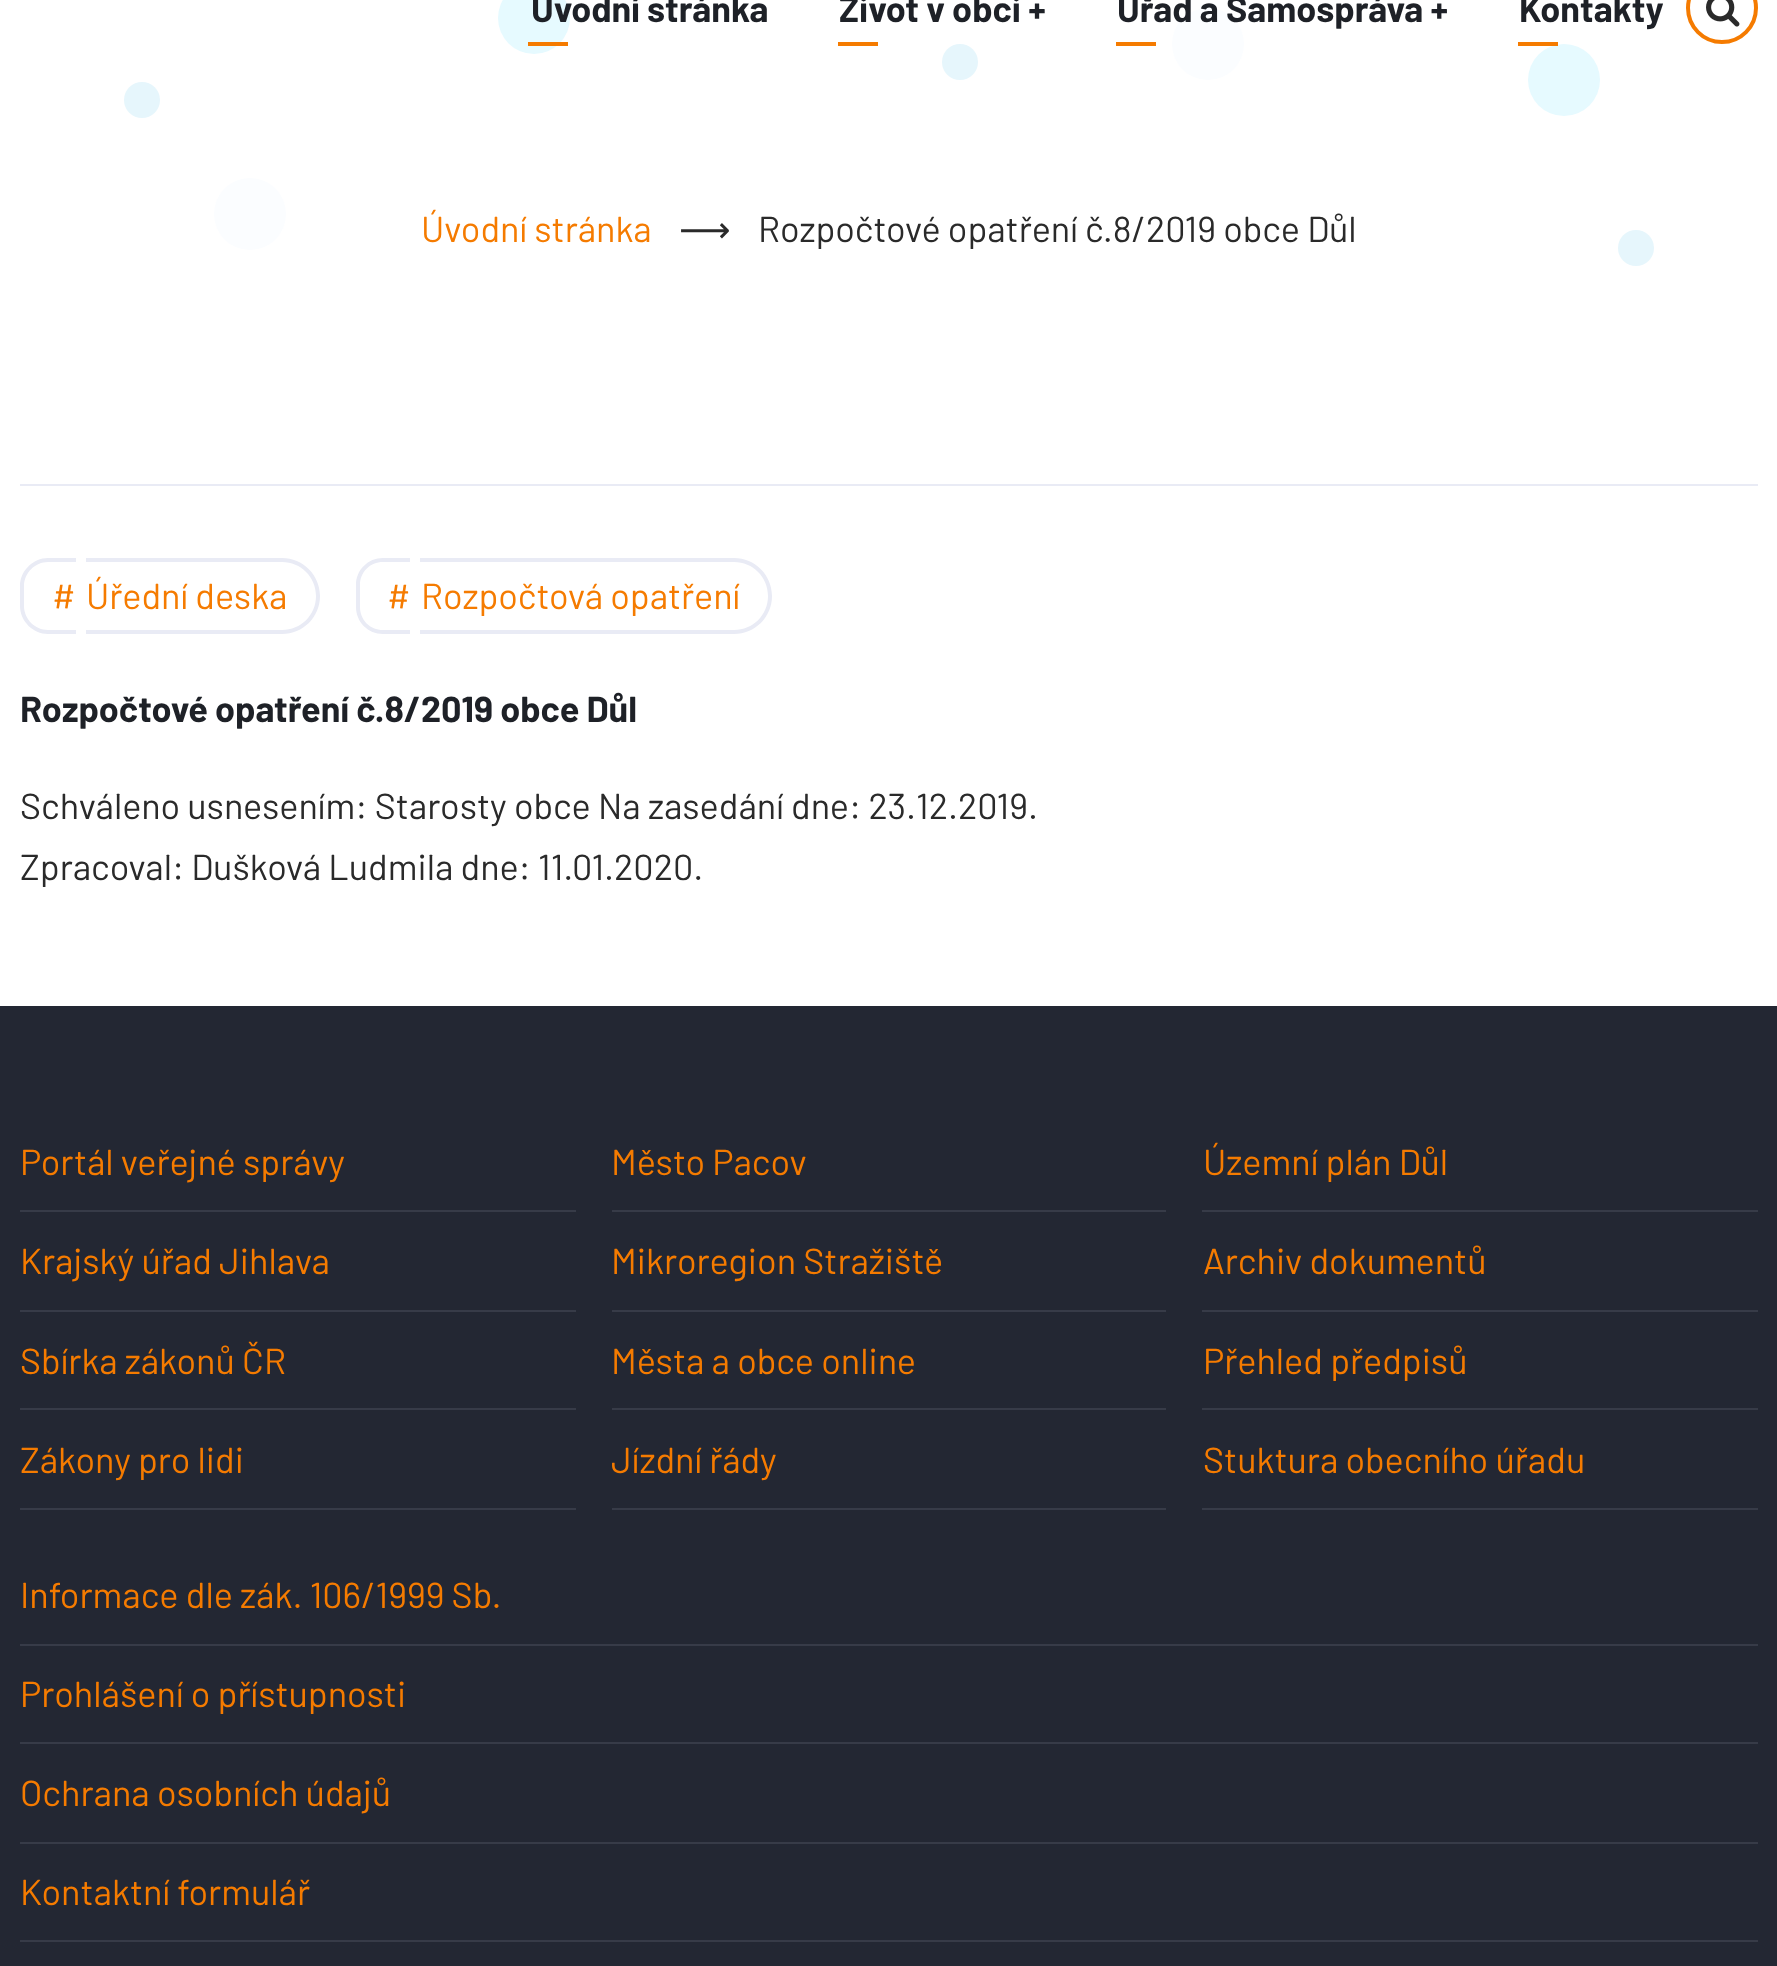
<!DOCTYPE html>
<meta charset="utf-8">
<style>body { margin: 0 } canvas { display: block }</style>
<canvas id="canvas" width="1777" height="1966"></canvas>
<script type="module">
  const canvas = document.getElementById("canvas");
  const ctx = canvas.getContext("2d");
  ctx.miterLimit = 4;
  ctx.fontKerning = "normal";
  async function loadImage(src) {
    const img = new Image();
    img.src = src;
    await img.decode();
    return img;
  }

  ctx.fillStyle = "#ffffff";
  ctx.fillRect(0, 0, 1777, 1966);
  ctx.fillStyle = "#e6faff";
  ctx.beginPath();
  ctx.arc(534, 18, 36, 0, Math.PI * 2);
  ctx.fill();
  ctx.font = "bold 36px Barlow";
  ctx.fillStyle = "#1e2127";
  ctx.fillText("Úvodní stránka", 531, 22);
  ctx.fillStyle = "#f57b00";
  ctx.fillRect(528, 42, 40, 4);
  ctx.fillStyle = "#1e2127";
  ctx.fillText("Život v obci +", 839, 22);
  ctx.fillStyle = "#f57b00";
  ctx.fillRect(838, 42, 40, 4);
  ctx.fillStyle = "#fbfdff";
  ctx.beginPath();
  ctx.arc(1208, 44, 36, 0, Math.PI * 2);
  ctx.fill();
  ctx.fillStyle = "#1e2127";
  ctx.fillText("Úřad a Samospráva +", 1117, 22);
  ctx.fillStyle = "#f57b00";
  ctx.fillRect(1116, 42, 40, 4);
  ctx.fillStyle = "#1e2127";
  ctx.fillText("Kontakty", 1519, 22);
  ctx.fillStyle = "#e6faff";
  ctx.beginPath();
  ctx.arc(1564, 80, 36, 0, Math.PI * 2);
  ctx.fill();
  ctx.fillStyle = "#f57b00";
  ctx.fillRect(1518, 42, 40, 4);
  ctx.beginPath();
  ctx.arc(1722, 8, 34, 0, Math.PI * 2);
  ctx.strokeStyle = "#f57b00";
  ctx.lineWidth = 4;
  ctx.stroke();
  ctx.drawImage(await loadImage("img1.png"), 1706, 0, 34, 27);
  ctx.fillStyle = "#e6f6fc";
  ctx.beginPath();
  ctx.arc(142, 100, 18, 0, Math.PI * 2);
  ctx.fill();
  ctx.beginPath();
  ctx.arc(960, 62, 18, 0, Math.PI * 2);
  ctx.fill();
  ctx.fillStyle = "#fbfdff";
  ctx.beginPath();
  ctx.arc(250, 214, 36, 0, Math.PI * 2);
  ctx.fill();
  ctx.font = "36px Barlow";
  ctx.fillStyle = "#f57b00";
  ctx.fillText("Úvodní stránka", 421, 242);
  ctx.font = "36px DejaVu Sans";
  ctx.fillStyle = "#2a2a2a";
  ctx.fillText("⟶", 679, 242);
  ctx.font = "36px Barlow";
  ctx.fillText("Rozpočtové opatření č.8/2019 obce Důl", 758, 242);
  ctx.fillStyle = "#e6f6fc";
  ctx.beginPath();
  ctx.arc(1636, 248, 18, 0, Math.PI * 2);
  ctx.fill();
  ctx.fillStyle = "#e9ebf5";
  ctx.fillRect(20, 484, 1738, 2);
  ctx.beginPath();
  ctx.moveTo(48, 558);
  ctx.lineTo(76, 558);
  ctx.lineTo(76, 634);
  ctx.lineTo(48, 634);
  ctx.bezierCurveTo(33, 634, 20, 621, 20, 606);
  ctx.lineTo(20, 586);
  ctx.bezierCurveTo(20, 571, 33, 558, 48, 558);
  ctx.closePath();
  ctx.moveTo(48, 562);
  ctx.lineTo(76, 562);
  ctx.lineTo(76, 630);
  ctx.lineTo(48, 630);
  ctx.bezierCurveTo(35, 630, 24, 619, 24, 606);
  ctx.lineTo(24, 586);
  ctx.bezierCurveTo(24, 573, 35, 562, 48, 562);
  ctx.closePath();
  ctx.fill("evenodd");
  ctx.fillStyle = "#f57b00";
  ctx.fillText("#", 52, 609);
  ctx.fillStyle = "#e9ebf5";
  ctx.beginPath();
  ctx.moveTo(86, 558);
  ctx.lineTo(282, 558);
  ctx.bezierCurveTo(303, 558, 320, 575, 320, 596);
  ctx.bezierCurveTo(320, 617, 303, 634, 282, 634);
  ctx.lineTo(86, 634);
  ctx.closePath();
  ctx.moveTo(86, 562);
  ctx.lineTo(282, 562);
  ctx.bezierCurveTo(301, 562, 316, 577, 316, 596);
  ctx.bezierCurveTo(316, 615, 301, 630, 282, 630);
  ctx.lineTo(86, 630);
  ctx.closePath();
  ctx.fill("evenodd");
  ctx.fillStyle = "#f57b00";
  ctx.fillText("Úřední deska", 86, 609);
  ctx.fillStyle = "#e9ebf5";
  ctx.beginPath();
  ctx.moveTo(383, 558);
  ctx.lineTo(410, 558);
  ctx.lineTo(410, 634);
  ctx.lineTo(383, 634);
  ctx.bezierCurveTo(368, 634, 356, 622, 356, 607);
  ctx.lineTo(356, 585);
  ctx.bezierCurveTo(356, 570, 368, 558, 383, 558);
  ctx.closePath();
  ctx.moveTo(383, 562);
  ctx.lineTo(410, 562);
  ctx.lineTo(410, 630);
  ctx.lineTo(383, 630);
  ctx.bezierCurveTo(370, 630, 360, 620, 360, 607);
  ctx.lineTo(360, 585);
  ctx.bezierCurveTo(360, 572, 370, 562, 383, 562);
  ctx.closePath();
  ctx.fill("evenodd");
  ctx.fillStyle = "#f57b00";
  ctx.fillText("#", 387, 609);
  ctx.fillStyle = "#e9ebf5";
  ctx.beginPath();
  ctx.moveTo(420, 558);
  ctx.lineTo(734, 558);
  ctx.bezierCurveTo(755, 558, 772, 575, 772, 596);
  ctx.bezierCurveTo(772, 617, 755, 634, 734, 634);
  ctx.lineTo(420, 634);
  ctx.closePath();
  ctx.moveTo(420, 562);
  ctx.lineTo(734, 562);
  ctx.bezierCurveTo(753, 562, 768, 577, 768, 596);
  ctx.bezierCurveTo(768, 615, 753, 630, 734, 630);
  ctx.lineTo(420, 630);
  ctx.closePath();
  ctx.fill("evenodd");
  ctx.fillStyle = "#f57b00";
  ctx.fillText("Rozpočtová opatření", 421, 609);
  ctx.font = "bold 36px Barlow";
  ctx.fillStyle = "#1e2127";
  ctx.fillText("Rozpočtové opatření č.8/2019 obce Důl", 20, 722);
  ctx.font = "36px Barlow";
  ctx.fillStyle = "#2a2a2a";
  ctx.fillText("Schváleno usnesením: Starosty obce Na zasedání dne: 23.12.2019.", 20, 819);
  ctx.fillText("Zpracoval: Dušková Ludmila dne: 11.01.2020.", 20, 880);
  ctx.fillStyle = "#232733";
  ctx.fillRect(0, 1006, 1777, 960);
  ctx.fillStyle = "#373b48";
  ctx.fillRect(20, 1210, 556, 2);
  ctx.fillStyle = "#f57b00";
  ctx.fillText("Portál veřejné správy", 20, 1175);
  ctx.fillStyle = "#373b48";
  ctx.fillRect(20, 1310, 556, 2);
  ctx.fillStyle = "#f57b00";
  ctx.fillText("Krajský úřad Jihlava", 20, 1274);
  ctx.fillStyle = "#373b48";
  ctx.fillRect(20, 1408, 556, 2);
  ctx.fillStyle = "#f57b00";
  ctx.fillText("Sbírka zákonů ČR", 20, 1374);
  ctx.fillStyle = "#373b48";
  ctx.fillRect(20, 1508, 556, 2);
  ctx.fillStyle = "#f57b00";
  ctx.fillText("Zákony pro lidi", 20, 1473);
  ctx.fillStyle = "#373b48";
  ctx.fillRect(612, 1210, 554, 2);
  ctx.fillStyle = "#f57b00";
  ctx.fillText("Město Pacov", 611, 1175);
  ctx.fillStyle = "#373b48";
  ctx.fillRect(612, 1310, 554, 2);
  ctx.fillStyle = "#f57b00";
  ctx.fillText("Mikroregion Stražiště", 611, 1274);
  ctx.fillStyle = "#373b48";
  ctx.fillRect(612, 1408, 554, 2);
  ctx.fillStyle = "#f57b00";
  ctx.fillText("Města a obce online", 611, 1374);
  ctx.fillStyle = "#373b48";
  ctx.fillRect(612, 1508, 554, 2);
  ctx.fillStyle = "#f57b00";
  ctx.fillText("Jízdní řády", 611, 1473);
  ctx.fillStyle = "#373b48";
  ctx.fillRect(1202, 1210, 556, 2);
  ctx.fillStyle = "#f57b00";
  ctx.fillText("Územní plán Důl", 1203, 1175);
  ctx.fillStyle = "#373b48";
  ctx.fillRect(1202, 1310, 556, 2);
  ctx.fillStyle = "#f57b00";
  ctx.fillText("Archiv dokumentů", 1203, 1274);
  ctx.fillStyle = "#373b48";
  ctx.fillRect(1202, 1408, 556, 2);
  ctx.fillStyle = "#f57b00";
  ctx.fillText("Přehled předpisů", 1203, 1374);
  ctx.fillStyle = "#373b48";
  ctx.fillRect(1202, 1508, 556, 2);
  ctx.fillStyle = "#f57b00";
  ctx.fillText("Stuktura obecního úřadu", 1203, 1473);
  ctx.fillStyle = "#373b48";
  ctx.fillRect(20, 1644, 1738, 2);
  ctx.fillStyle = "#f57b00";
  ctx.fillText("Informace dle zák. 106/1999 Sb.", 20, 1608);
  ctx.fillStyle = "#373b48";
  ctx.fillRect(20, 1742, 1738, 2);
  ctx.fillStyle = "#f57b00";
  ctx.fillText("Prohlášení o přístupnosti", 20, 1707);
  ctx.fillStyle = "#373b48";
  ctx.fillRect(20, 1842, 1738, 2);
  ctx.fillStyle = "#f57b00";
  ctx.fillText("Ochrana osobních údajů", 20, 1806);
  ctx.fillStyle = "#373b48";
  ctx.fillRect(20, 1940, 1738, 2);
  ctx.fillStyle = "#f57b00";
  ctx.fillText("Kontaktní formulář", 20, 1905);
</script>
